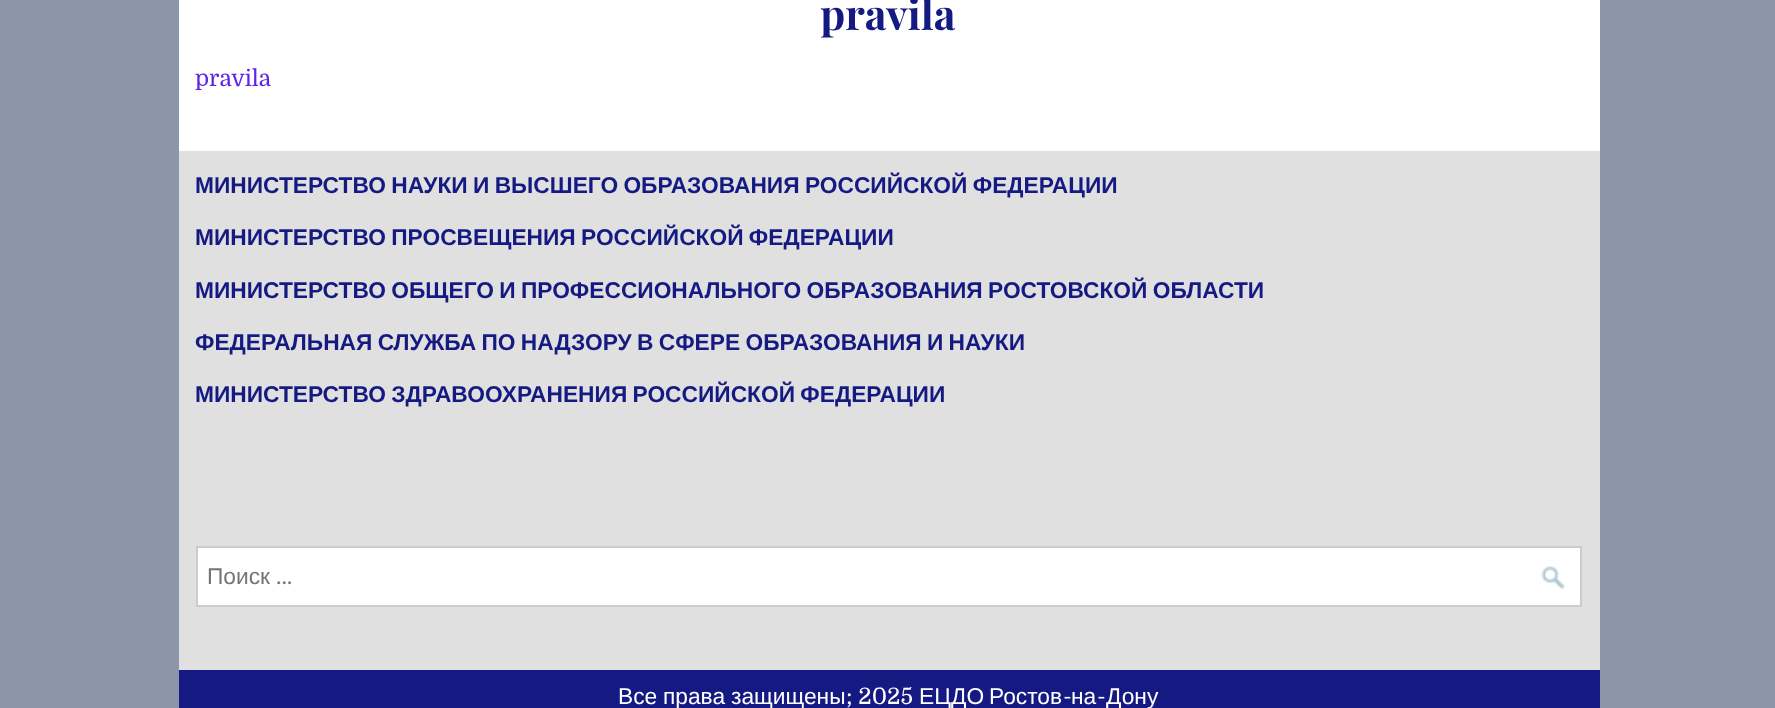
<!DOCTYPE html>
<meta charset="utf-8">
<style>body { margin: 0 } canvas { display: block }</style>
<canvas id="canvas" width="1775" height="708"></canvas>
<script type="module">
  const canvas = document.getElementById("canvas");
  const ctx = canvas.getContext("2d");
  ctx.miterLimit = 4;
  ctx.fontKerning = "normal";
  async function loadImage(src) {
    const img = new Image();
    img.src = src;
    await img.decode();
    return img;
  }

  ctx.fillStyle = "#8d95a8";
  ctx.fillRect(0, 0, 1775, 708);
  ctx.fillStyle = "#ffffff";
  ctx.fillRect(179, 0, 1421, 151);
  ctx.font = "bold 42px Playfair Display";
  ctx.fillStyle = "#141a82";
  ctx.fillText("pravila", 820, 30);
  ctx.font = "22.75px Domine";
  ctx.fillStyle = "#6122e8";
  ctx.fillText("pravila", 195, 86);
  ctx.fillStyle = "#e0e0e0";
  ctx.fillRect(179, 151, 1421, 519);
  ctx.wordSpacing = "-1px";
  ctx.font = "bold 22.75px Liberation Sans";
  ctx.fillStyle = "#141a82";
  ctx.fillText("МИНИСТЕРСТВО НАУКИ И ВЫСШЕГО ОБРАЗОВАНИЯ РОССИЙСКОЙ ФЕДЕРАЦИИ", 195, 193);
  ctx.fillText("МИНИСТЕРСТВО ПРОСВЕЩЕНИЯ РОССИЙСКОЙ ФЕДЕРАЦИИ", 195, 245);
  ctx.fillText("МИНИСТЕРСТВО ОБЩЕГО И ПРОФЕССИОНАЛЬНОГО ОБРАЗОВАНИЯ РОСТОВСКОЙ ОБЛАСТИ", 195, 298);
  ctx.fillText("ФЕДЕРАЛЬНАЯ СЛУЖБА ПО НАДЗОРУ В СФЕРЕ ОБРАЗОВАНИЯ И НАУКИ", 195, 350);
  ctx.fillText("МИНИСТЕРСТВО ЗДРАВООХРАНЕНИЯ РОССИЙСКОЙ ФЕДЕРАЦИИ", 195, 402);
  ctx.fillStyle = "#ffffff";
  ctx.fillRect(198, 548, 1382, 57);
  ctx.drawImage(await loadImage("img1.png"), 1541, 566, 24, 24);
  ctx.strokeStyle = "#cccccc";
  ctx.lineWidth = 2;
  ctx.strokeRect(197, 547, 1384, 59);
  ctx.wordSpacing = "0px";
  ctx.font = "22.75px Liberation Sans";
  ctx.fillStyle = "#757575";
  ctx.fillText("Поиск", 207, 584);
  ctx.font = "22.75px Domine";
  ctx.fillText("…", 276, 584);
  ctx.fillStyle = "#141a82";
  ctx.fillRect(179, 670, 1421, 38);
  ctx.font = "22.75px Liberation Sans";
  ctx.fillStyle = "#ffffff";
  ctx.fillText("Все", 618, 704);
  ctx.fillText("права", 663, 704);
  ctx.fillText("защищены", 731, 704);
  ctx.font = "22.75px Domine";
  ctx.fillText("; 2025", 846, 704);
  ctx.font = "22.75px Liberation Sans";
  ctx.fillText("ЕЦДО", 919, 704);
  ctx.fillText("Ростов", 989, 704);
  ctx.font = "22.75px Domine";
  ctx.fillText("-", 1063, 704);
  ctx.font = "22.75px Liberation Sans";
  ctx.fillText("на", 1071, 704);
  ctx.font = "22.75px Domine";
  ctx.fillText("-", 1097, 704);
  ctx.font = "22.75px Liberation Sans";
  ctx.fillText("Дону", 1106, 704);
</script>
